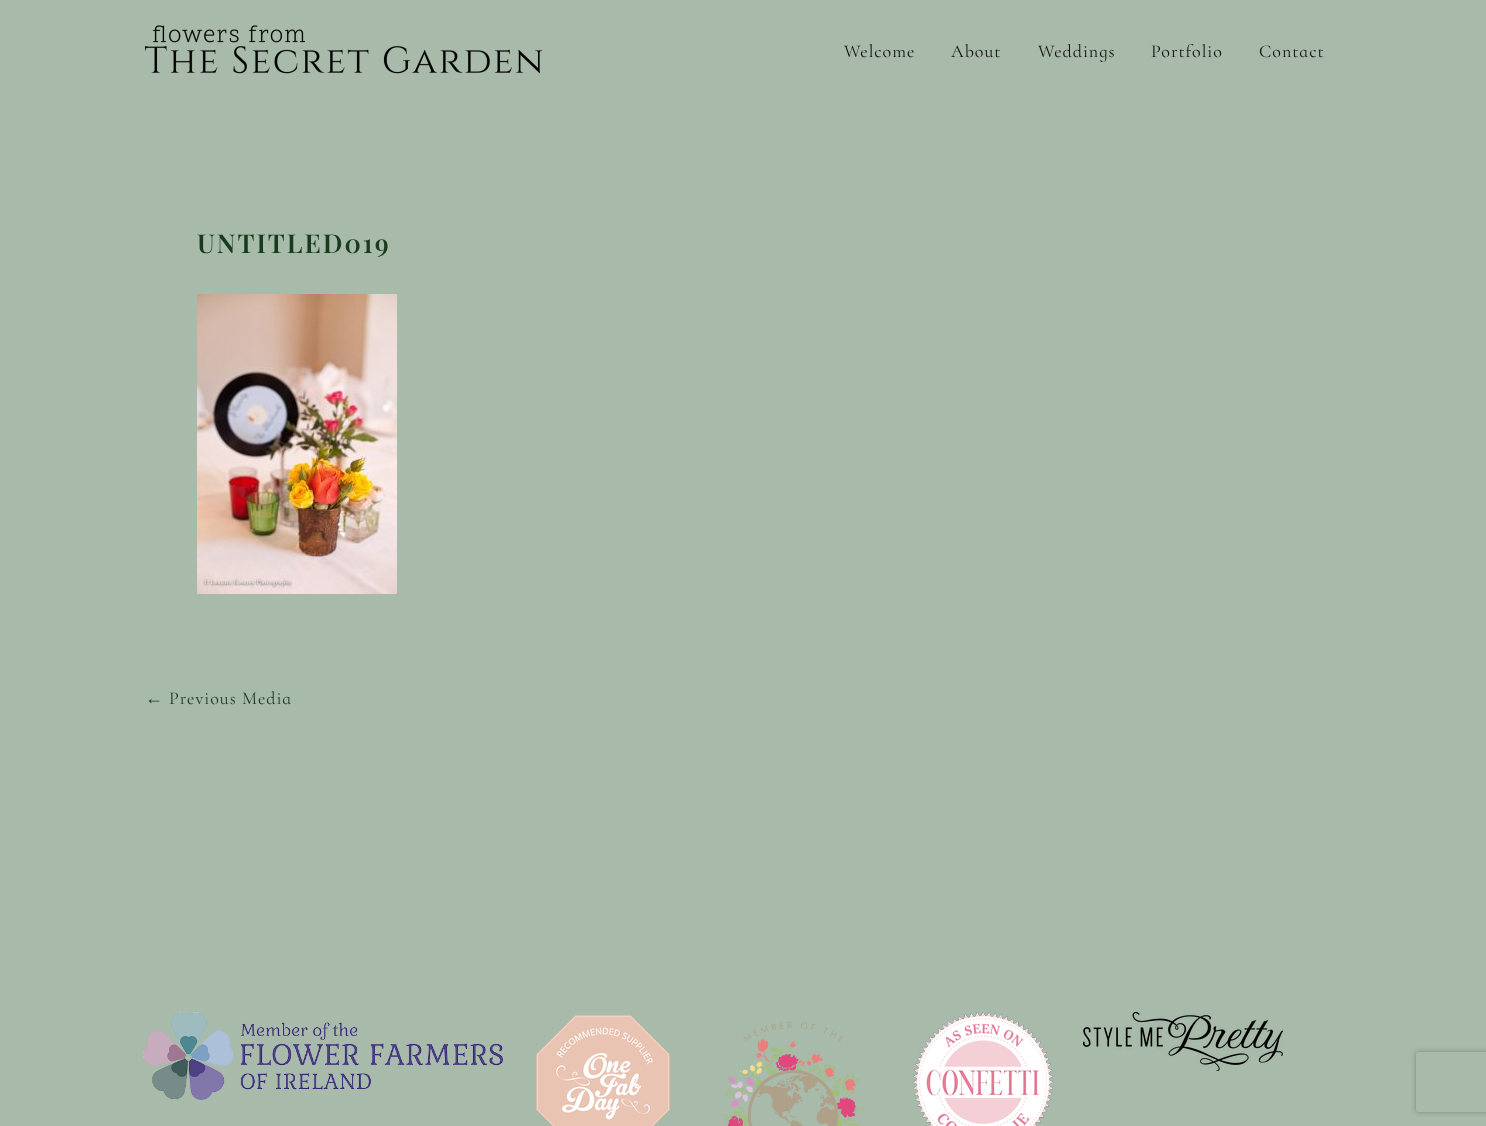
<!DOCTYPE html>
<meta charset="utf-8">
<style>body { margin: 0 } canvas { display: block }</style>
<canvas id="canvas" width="1486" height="1126"></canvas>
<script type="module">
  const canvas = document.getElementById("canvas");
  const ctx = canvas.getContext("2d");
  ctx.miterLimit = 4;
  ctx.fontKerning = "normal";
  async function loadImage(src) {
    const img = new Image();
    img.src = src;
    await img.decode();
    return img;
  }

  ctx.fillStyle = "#a8baaa";
  ctx.fillRect(0, 0, 1486, 1126);
  ctx.drawImage(await loadImage("img1.png"), 145, 25, 398, 49);
  ctx.letterSpacing = "1px";
  ctx.font = "300 18px Cormorant Infant";
  ctx.fillStyle = "#111111";
  ctx.fillText("Welcome", 844, 57);
  ctx.fillText("About", 951, 57);
  ctx.fillText("Weddings", 1038, 57);
  ctx.fillText("Portfolio", 1151, 57);
  ctx.fillText("Contact", 1259, 57);
  ctx.letterSpacing = "2px";
  ctx.font = "600 26px Playfair Display";
  ctx.fillStyle = "#173b1c";
  ctx.fillText("UNTITLED019", 197, 253);
  ctx.drawImage(await loadImage("img2.png"), 197, 294, 200, 300);
  ctx.letterSpacing = "1px";
  ctx.font = "18px Liberation Serif";
  ctx.fillText("←", 145, 704);
  ctx.font = "300 18px Cormorant Infant";
  ctx.fillText("Previous Media", 169, 704);
  ctx.fillStyle = "#adb6be";
  ctx.fillRect(0, 991, 1486, 1);
  ctx.drawImage(await loadImage("img3.png"), 143, 1012, 360, 88);
  ctx.drawImage(await loadImage("img4.png"), 536, 1015, 134, 111);
  ctx.drawImage(await loadImage("img5.png"), 723, 1021, 141, 105);
  ctx.drawImage(await loadImage("img6.png"), 913, 1012, 140, 114);
  ctx.drawImage(await loadImage("img7.png"), 1083, 1012, 200, 59);
  ctx.save();
  ctx.beginPath();
  ctx.moveTo(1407, 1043);
  ctx.lineTo(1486, 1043);
  ctx.lineTo(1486, 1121);
  ctx.lineTo(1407, 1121);
  ctx.closePath();
  ctx.moveTo(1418, 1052);
  ctx.lineTo(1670, 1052);
  ctx.bezierCurveTo(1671, 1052, 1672, 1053, 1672, 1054);
  ctx.lineTo(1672, 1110);
  ctx.bezierCurveTo(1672, 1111, 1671, 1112, 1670, 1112);
  ctx.lineTo(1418, 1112);
  ctx.bezierCurveTo(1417, 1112, 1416, 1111, 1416, 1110);
  ctx.lineTo(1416, 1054);
  ctx.bezierCurveTo(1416, 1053, 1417, 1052, 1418, 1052);
  ctx.closePath();
  ctx.clip("evenodd");
  ctx.fillStyle = "#808080";
  ctx.filter = "blur(2.5px)";
  ctx.beginPath();
  ctx.roundRect(1416, 1052, 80, 60, 2);
  ctx.fill();
  ctx.filter = "none";
  ctx.restore();
</script>
